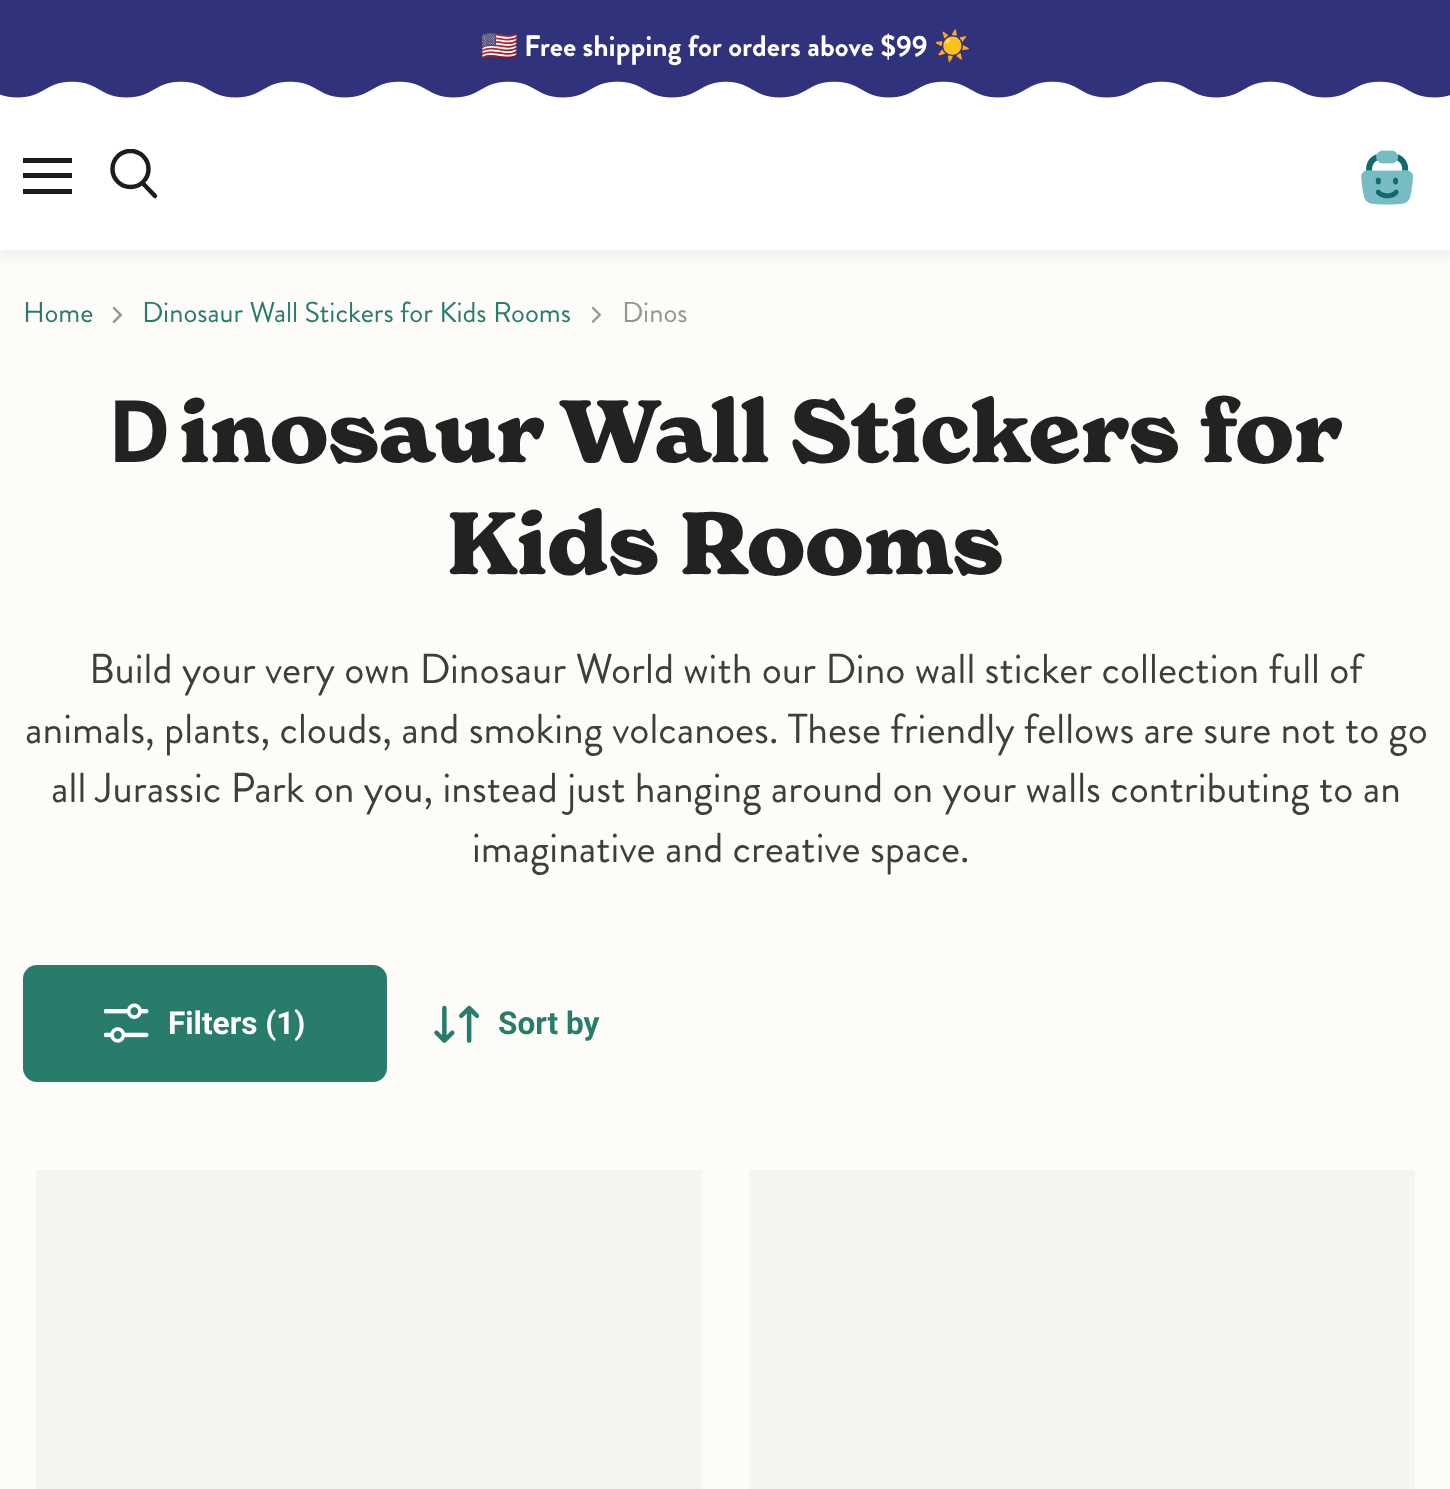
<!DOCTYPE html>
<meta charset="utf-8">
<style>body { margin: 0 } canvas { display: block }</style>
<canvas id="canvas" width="1450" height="1489"></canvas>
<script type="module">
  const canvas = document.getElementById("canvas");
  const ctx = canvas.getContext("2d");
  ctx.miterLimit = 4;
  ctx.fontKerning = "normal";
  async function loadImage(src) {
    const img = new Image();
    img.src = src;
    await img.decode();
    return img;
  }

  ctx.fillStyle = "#fdfcf8";
  ctx.fillRect(0, 0, 1450, 1489);
  ctx.fillStyle = "rgba(0, 0, 0, 0.05)";
  ctx.filter = "blur(7px)";
  ctx.beginPath();
  ctx.rect(0, 108, 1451, 149);
  ctx.fill();
  ctx.filter = "none";
  ctx.fillStyle = "#ffffff";
  ctx.fillRect(0, 81, 1450, 169);
  ctx.drawImage(await loadImage("img1.png"), 0, 0, 1450, 98);
  ctx.font = "bold 29.5px Noto Color Emoji";
  ctx.fillText("🇺🇸", 481, 56);
  ctx.font = "bold 29.5px Brandon Grotesque";
  ctx.fillText("Free shipping for orders above $99", 524, 56);
  ctx.font = "bold 29.5px Noto Color Emoji";
  ctx.fillText("☀️", 934, 56);
  ctx.fillStyle = "#1d1d1d";
  ctx.fillRect(23, 158, 49, 5);
  ctx.fillRect(23, 173, 49, 5);
  ctx.fillRect(23, 189, 49, 5);
  ctx.beginPath();
  ctx.moveTo(155, 196);
  ctx.lineTo(143, 183.5);
  ctx.strokeStyle = "#1d1d1d";
  ctx.lineWidth = 4.5;
  ctx.lineCap = "round";
  ctx.stroke();
  ctx.save();
  ctx.beginPath();
  ctx.rect(108, 149, 52, 54);
  ctx.clip();
  ctx.beginPath();
  ctx.arc(130.5, 169, 18, 0, Math.PI * 2);
  ctx.stroke();
  ctx.restore();
  ctx.drawImage(await loadImage("img2.png"), 1361, 150, 52, 55);
  ctx.font = "28.75px Brandon Grotesque";
  ctx.fillStyle = "#287c6c";
  ctx.fillText("Home", 23, 322);
  ctx.fillStyle = "#949494";
  ctx.beginPath();
  ctx.moveTo(112.5, 321.5);
  ctx.lineTo(114, 323.5);
  ctx.lineTo(122.5, 315);
  ctx.lineTo(114, 306.5);
  ctx.lineTo(112.5, 308);
  ctx.lineTo(119, 315);
  ctx.closePath();
  ctx.fill("evenodd");
  ctx.fillStyle = "#287c6c";
  ctx.fillText("Dinosaur Wall Stickers for Kids Rooms", 142, 322);
  ctx.drawImage(await loadImage("img3.png"), 591, 306, 11, 17);
  ctx.fillStyle = "#949494";
  ctx.fillText("Dinos", 622, 322);
  ctx.font = "bold 86px Noto Sans";
  ctx.fillStyle = "#222222";
  ctx.fillText("D", 108, 462);
  ctx.font = "bold 86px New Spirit";
  ctx.fillText("inosaur Wall Stickers for", 179, 462);
  ctx.fillText("Kids Rooms", 447, 574);
  ctx.font = "41.75px Brandon Grotesque";
  ctx.fillStyle = "#3e3e3e";
  ctx.fillText("Build your very own Dinosaur World with our Dino wall sticker collection full of", 89, 683);
  ctx.fillText("animals, plants, clouds, and smoking volcanoes. These friendly fellows are sure not to go", 25, 743);
  ctx.fillText("all Jurassic Park on you, instead just hanging around on your walls contributing to an", 51, 802);
  ctx.fillText("imaginative and creative space.", 472, 862);
  ctx.fillStyle = "#287c6c";
  ctx.beginPath();
  ctx.roundRect(23, 965, 364, 117, 14);
  ctx.fill();
  ctx.drawImage(await loadImage("img4.png"), 104, 1003, 45, 40);
  ctx.font = "bold 31.5px Roboto";
  ctx.fillStyle = "#ffffff";
  ctx.fillText("Filters (1)", 168, 1034);
  ctx.drawImage(await loadImage("img5.png"), 434, 1005, 45, 38);
  ctx.fillStyle = "#287c6c";
  ctx.fillText("Sort by", 498, 1034);
  ctx.fillStyle = "#f5f4f1";
  ctx.fillRect(36, 1170, 666, 319);
  ctx.fillRect(749, 1170, 666, 319);
</script>
